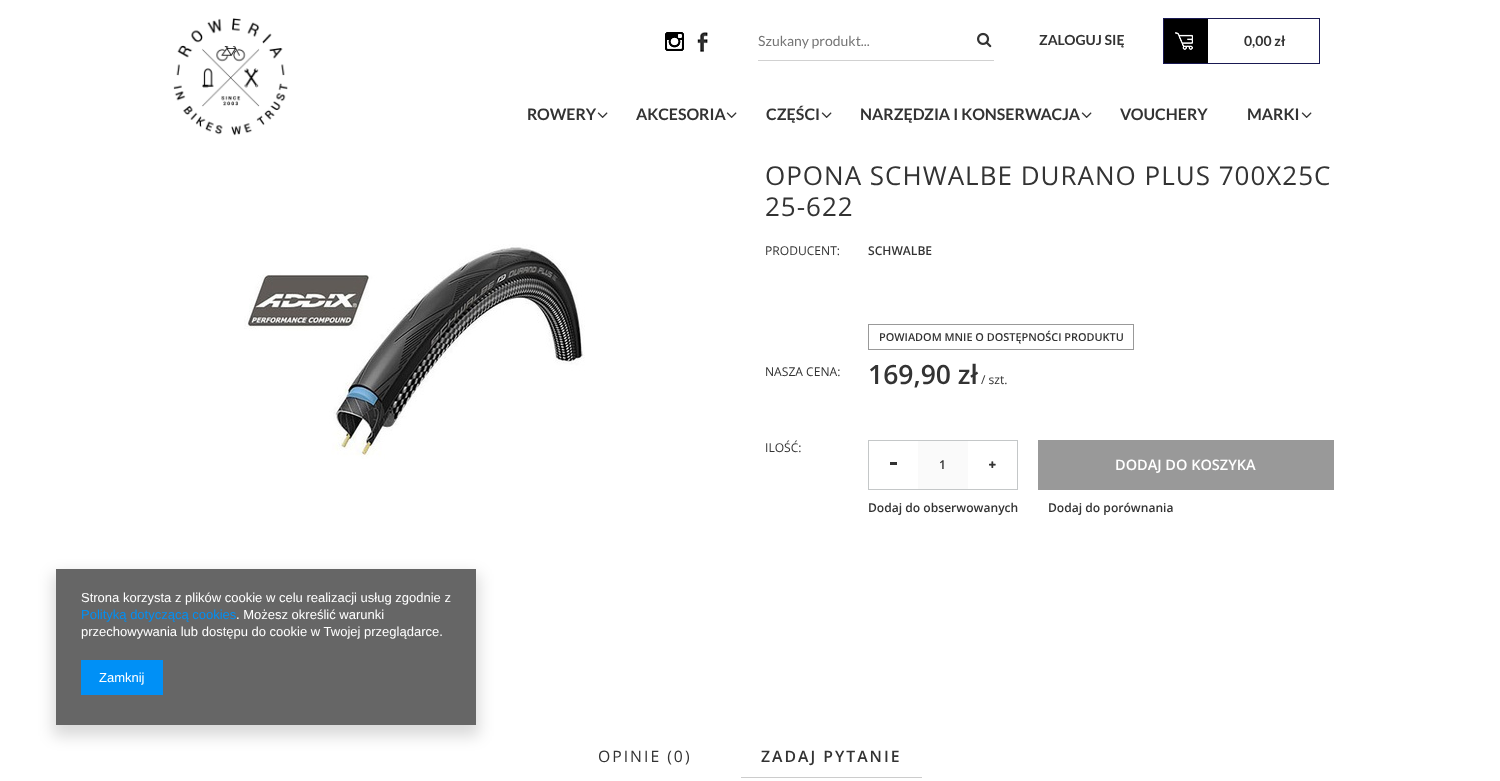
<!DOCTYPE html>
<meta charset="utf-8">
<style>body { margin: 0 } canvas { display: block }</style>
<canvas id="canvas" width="1500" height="781"></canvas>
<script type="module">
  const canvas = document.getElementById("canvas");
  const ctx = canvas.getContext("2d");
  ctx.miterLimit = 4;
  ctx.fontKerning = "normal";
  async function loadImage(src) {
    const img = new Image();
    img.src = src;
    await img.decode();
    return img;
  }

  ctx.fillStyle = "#ffffff";
  ctx.fillRect(0, 0, 1500, 781);
  ctx.fillStyle = "rgba(0, 0, 0, 0.15)";
  ctx.filter = "blur(7.5px)";
  ctx.beginPath();
  ctx.rect(53, 574, 426, 162);
  ctx.fill();
  ctx.filter = "none";
  ctx.fillStyle = "#666666";
  ctx.fillRect(56, 569, 420, 156);
  ctx.font = "13px Liberation Sans";
  ctx.fillStyle = "#ffffff";
  ctx.fillText("Strona korzysta z plików cookie w celu realizacji usług zgodnie z", 81, 602);
  ctx.fillStyle = "#0090f6";
  ctx.fillText("Polityką dotyczącą cookies", 81, 619);
  ctx.fillStyle = "#ffffff";
  ctx.fillText(". Możesz określić warunki", 236, 619);
  ctx.fillText("przechowywania lub dostępu do cookie w Twojej przeglądarce.", 81, 636);
  ctx.fillStyle = "#0090f6";
  ctx.fillRect(81, 660, 82, 35);
  ctx.fillStyle = "#ffffff";
  ctx.fillText("Zamknij", 99, 682);
  ctx.drawImage(await loadImage("img1.png"), 173, 18, 115, 118);
  ctx.drawImage(await loadImage("img2.png"), 665, 32, 19, 19);
  ctx.drawImage(await loadImage("img3.png"), 697, 32, 11, 20);
  ctx.fillStyle = "#d1d1d1";
  ctx.fillRect(758, 60, 236, 1);
  ctx.font = "14px Lato";
  ctx.fillStyle = "#757575";
  ctx.fillText("Szukany produkt...", 758, 46);
  ctx.drawImage(await loadImage("img4.png"), 977, 32, 15, 16);
  ctx.font = "bold 14px Lato";
  ctx.fillStyle = "#333333";
  ctx.fillText("ZALOGUJ SIĘ", 1039, 45);
  ctx.strokeStyle = "#191952";
  ctx.strokeRect(1163.5, 18.5, 156, 45);
  ctx.drawImage(await loadImage("img5.png"), 1164, 19, 44, 44);
  ctx.fillText("0,00 zł", 1244, 46);
  ctx.font = "bold 15.9px Lato";
  ctx.fillText("ROWERY", 527, 120);
  ctx.drawImage(await loadImage("img6.png"), 597, 112, 11, 6);
  ctx.fillText("AKCESORIA", 636, 120);
  ctx.drawImage(await loadImage("img6.png"), 726, 112, 11, 6);
  ctx.fillText("CZĘŚCI", 766, 120);
  ctx.drawImage(await loadImage("img6.png"), 821, 112, 11, 6);
  ctx.fillText("NARZĘDZIA I KONSERWACJA", 860, 120);
  ctx.drawImage(await loadImage("img6.png"), 1081, 112, 11, 6);
  ctx.fillText("VOUCHERY", 1120, 120);
  ctx.fillText("MARKI", 1247, 120);
  ctx.drawImage(await loadImage("img6.png"), 1301, 112, 11, 6);
  ctx.letterSpacing = "1px";
  ctx.font = "26px Open Sans";
  ctx.fillText("OPONA SCHWALBE DURANO PLUS 700X25C", 765, 185);
  ctx.fillText("25-622", 765, 216);
  ctx.drawImage(await loadImage("img7.png"), 244, 244, 341, 215);
  ctx.letterSpacing = "0px";
  ctx.font = "12.1px Open Sans";
  ctx.fillText("PRODUCENT:", 765, 255);
  ctx.font = "600 12.1px Open Sans";
  ctx.fillText("SCHWALBE", 868, 255);
  ctx.strokeStyle = "#999999";
  ctx.strokeRect(868.5, 324.5, 265, 25);
  ctx.font = "600 10.9px Open Sans";
  ctx.fillText("POWIADOM MNIE O DOSTĘPNOŚCI PRODUKTU", 879, 341);
  ctx.font = "12.1px Open Sans";
  ctx.fillText("NASZA CENA:", 765, 376);
  ctx.font = "600 26.5px Open Sans";
  ctx.fillText("169,90 zł", 868, 384);
  ctx.font = "12.1px Open Sans";
  ctx.fillText("/ szt.", 981, 384);
  ctx.fillText("ILOŚĆ:", 765, 452);
  ctx.fillStyle = "#c4c7c8";
  ctx.fillRect(868, 440, 150, 1);
  ctx.fillRect(868, 489, 100, 1);
  ctx.fillRect(868, 440, 1, 50);
  ctx.fillStyle = "#333333";
  ctx.fillRect(890, 462, 7, 3);
  ctx.fillStyle = "#fafafa";
  ctx.fillRect(918, 441, 50, 48);
  ctx.font = "600 12.1px Open Sans";
  ctx.fillStyle = "#333333";
  ctx.fillText("1", 939, 469);
  ctx.fillStyle = "#c4c7c8";
  ctx.fillRect(1017, 440, 1, 50);
  ctx.fillRect(968, 489, 50, 1);
  ctx.drawImage(await loadImage("img8.png"), 989, 461, 7, 7);
  ctx.fillStyle = "#999999";
  ctx.fillRect(1038, 440, 296, 50);
  ctx.font = "600 14.5px Open Sans";
  ctx.fillStyle = "#ffffff";
  ctx.fillText("DODAJ DO KOSZYKA", 1115, 470);
  ctx.font = "600 12.1px Open Sans";
  ctx.fillStyle = "#333333";
  ctx.fillText("Dodaj do obserwowanych", 868, 512);
  ctx.fillText("Dodaj do porównania", 1048, 512);
  ctx.letterSpacing = "2px";
  ctx.font = "15.75px Open Sans";
  ctx.fillText("OPINIE (0)", 598, 762);
  ctx.fillStyle = "#cccccc";
  ctx.fillRect(741, 777, 181, 1);
  ctx.font = "600 15.75px Open Sans";
  ctx.fillStyle = "#333333";
  ctx.fillText("ZADAJ PYTANIE", 761, 762);
</script>
